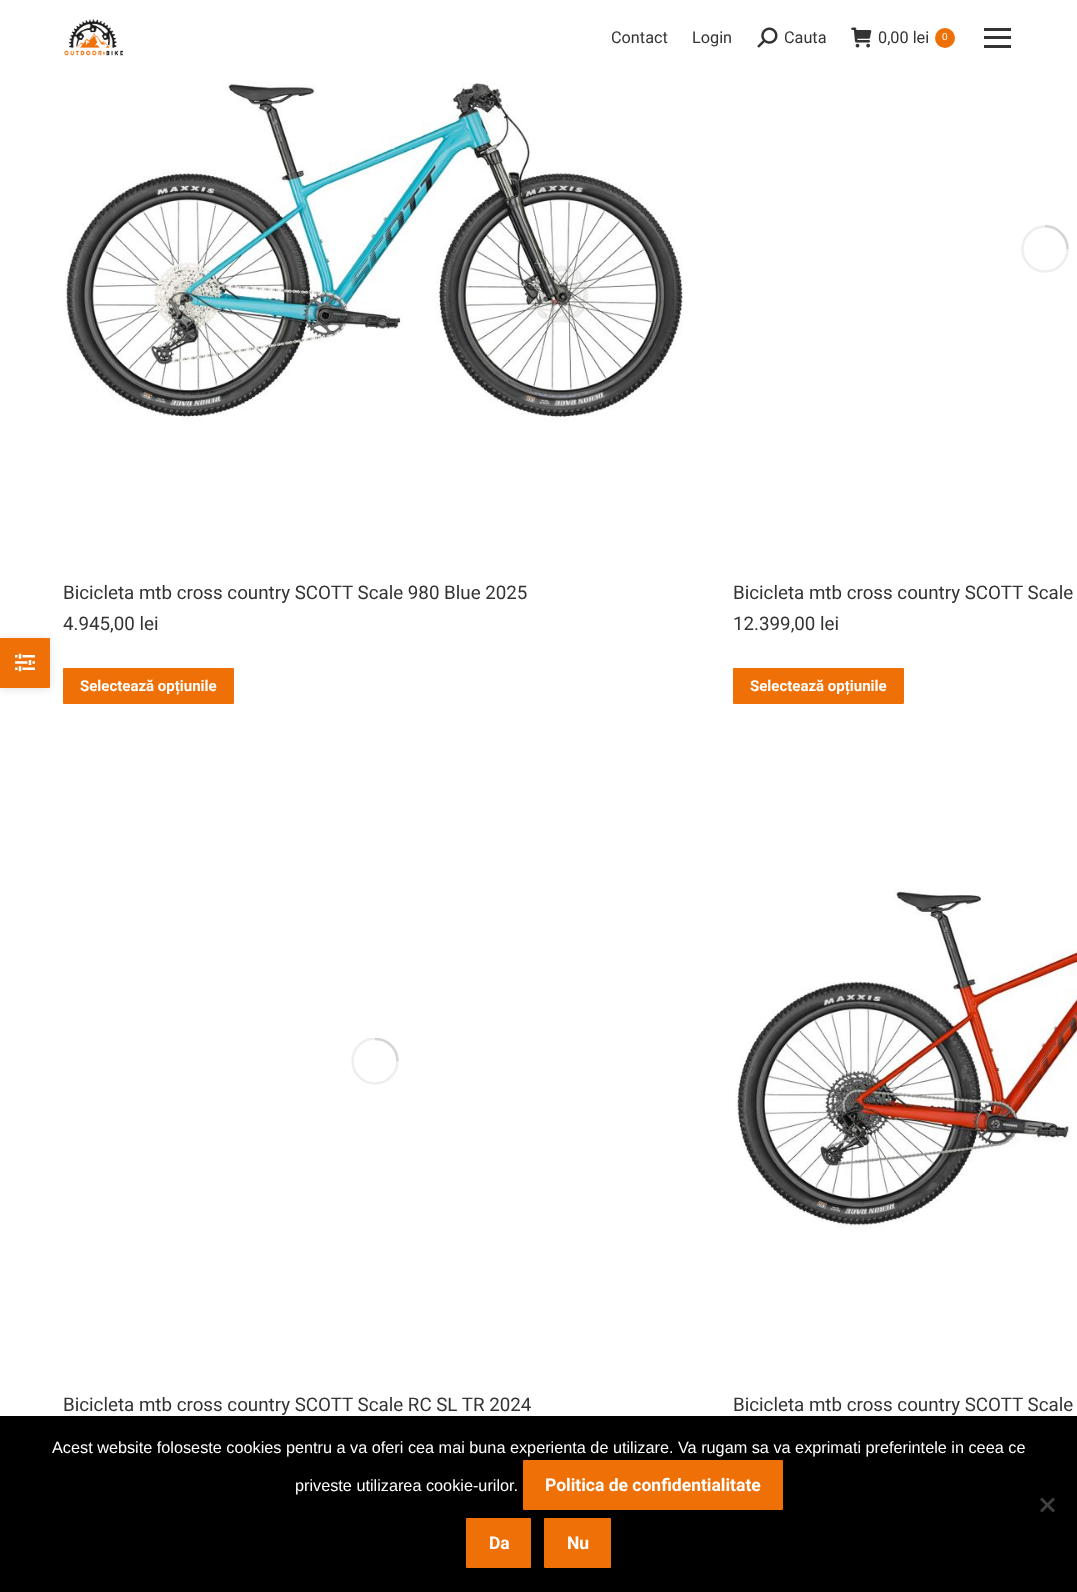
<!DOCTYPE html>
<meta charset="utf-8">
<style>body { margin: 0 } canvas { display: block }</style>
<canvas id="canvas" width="1077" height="1592"></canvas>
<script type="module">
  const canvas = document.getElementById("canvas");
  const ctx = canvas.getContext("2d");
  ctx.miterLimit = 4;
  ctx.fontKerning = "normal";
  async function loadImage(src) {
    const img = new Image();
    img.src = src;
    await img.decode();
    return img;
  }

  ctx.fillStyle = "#ffffff";
  ctx.fillRect(0, 0, 1077, 1592);
  ctx.drawImage(await loadImage("img1.png"), 64, 19, 59, 37);
  ctx.font = "16.25px Roboto";
  ctx.fillStyle = "#333333";
  ctx.fillText("Contact", 611, 43);
  ctx.fillText("Login", 692, 43);
  ctx.drawImage(await loadImage("img2.png"), 757, 27, 21, 21);
  ctx.fillText("Cauta", 784, 43);
  ctx.drawImage(await loadImage("img3.png"), 851, 27, 21, 21);
  ctx.fillText("0,00 lei", 878, 43);
  ctx.fillStyle = "#ee7006";
  ctx.beginPath();
  ctx.arc(945, 38, 10, 0, Math.PI * 2);
  ctx.fill();
  ctx.font = "10px Liberation Sans";
  ctx.fillStyle = "#ffffff";
  ctx.fillText("0", 942, 40);
  ctx.fillStyle = "#333333";
  ctx.fillRect(984, 28, 27, 3);
  ctx.fillRect(984, 36, 27, 3);
  ctx.fillRect(984, 45, 27, 3);
  ctx.fillStyle = "rgba(0, 0, 0, 0.12)";
  ctx.filter = "blur(4px)";
  ctx.beginPath();
  ctx.roundRect(0, 639, 50, 50, 1);
  ctx.fill();
  ctx.filter = "none";
  ctx.fillStyle = "#ee7006";
  ctx.beginPath();
  ctx.roundRect(0, 638, 50, 50, [0, 1, 1, 0]);
  ctx.fill();
  ctx.drawImage(await loadImage("img4.png"), 15, 653, 20, 19);
  ctx.drawImage(await loadImage("img5.png"), 63, 83, 620, 339);
  ctx.font = "18.75px Roboto";
  ctx.fillStyle = "#333333";
  ctx.fillText("Bicicleta mtb cross country SCOTT Scale 980 Blue 2025", 63, 599);
  ctx.fillText("4.945,00 lei", 63, 630);
  ctx.fillStyle = "#ee7006";
  ctx.beginPath();
  ctx.roundRect(63, 668, 171, 36, 1);
  ctx.fill();
  ctx.font = "bold 15px Roboto";
  ctx.fillStyle = "#ffffff";
  ctx.fillText("Selectează opțiunile", 80, 691);
  ctx.beginPath();
  ctx.arc(1045, 249, 22.5, 0, Math.PI * 2);
  ctx.strokeStyle = "#eeeeef";
  ctx.lineWidth = 2.5;
  ctx.stroke();
  ctx.beginPath();
  ctx.moveTo(1067.5, 249);
  ctx.bezierCurveTo(1067.5, 236.5, 1057.5, 226, 1045, 226);
  ctx.strokeStyle = "rgba(133, 134, 140, 0.25)";
  ctx.stroke();
  ctx.font = "18.75px Roboto";
  ctx.fillStyle = "#333333";
  ctx.fillText("Bicicleta mtb cross country SCOTT Scale", 733, 599);
  ctx.fillText("12.399,00 lei", 733, 630);
  ctx.fillStyle = "#ee7006";
  ctx.beginPath();
  ctx.roundRect(733, 668, 171, 36, 1);
  ctx.fill();
  ctx.font = "bold 15px Roboto";
  ctx.fillStyle = "#ffffff";
  ctx.fillText("Selectează opțiunile", 750, 691);
  ctx.save();
  ctx.beginPath();
  ctx.rect(351, 1038, 48, 47);
  ctx.clip();
  ctx.beginPath();
  ctx.arc(375, 1061, 22.5, 0, Math.PI * 2);
  ctx.strokeStyle = "#eeeeef";
  ctx.stroke();
  ctx.restore();
  ctx.beginPath();
  ctx.moveTo(397.5, 1061);
  ctx.bezierCurveTo(397.5, 1049, 387.5, 1039, 375, 1039);
  ctx.stroke();
  ctx.font = "18.75px Roboto";
  ctx.fillStyle = "#333333";
  ctx.fillText("Bicicleta mtb cross country SCOTT Scale RC SL TR 2024", 63, 1411);
  ctx.drawImage(await loadImage("img6.png"), 735, 889, 342, 340);
  ctx.fillText("Bicicleta mtb cross country SCOTT Scale", 733, 1411);
  ctx.fillStyle = "#000000";
  ctx.fillRect(0, 1416, 1077, 176);
  ctx.font = "16.25px Liberation Sans";
  ctx.fillStyle = "#ffffff";
  ctx.fillText("Acest website foloseste cookies pentru a va oferi cea mai buna experienta de utilizare. Va rugam sa va exprimati preferintele in ceea ce", 52, 1453);
  ctx.fillText("priveste utilizarea cookie-urilor.", 295, 1491);
  ctx.fillStyle = "#ee7006";
  ctx.beginPath();
  ctx.roundRect(523, 1460, 260, 50, 1);
  ctx.fill();
  ctx.font = "bold 17.5px Roboto";
  ctx.fillStyle = "#ffffff";
  ctx.fillText("Politica de confidentialitate", 545, 1491);
  ctx.fillStyle = "#404040";
  ctx.beginPath();
  ctx.moveTo(1053, 1497.5);
  ctx.lineTo(1055, 1499.5);
  ctx.lineTo(1042, 1512.5);
  ctx.lineTo(1040, 1510.5);
  ctx.closePath();
  ctx.fill();
  ctx.beginPath();
  ctx.moveTo(1040, 1499.5);
  ctx.lineTo(1042, 1497.5);
  ctx.lineTo(1055, 1510.5);
  ctx.lineTo(1053, 1512.5);
  ctx.closePath();
  ctx.fill();
  ctx.fillStyle = "#ee7006";
  ctx.beginPath();
  ctx.roundRect(466, 1518, 65, 50, 1);
  ctx.fill();
  ctx.fillStyle = "#ffffff";
  ctx.fillText("Da", 489, 1549);
  ctx.fillStyle = "#ee7006";
  ctx.beginPath();
  ctx.roundRect(544, 1518, 67, 50, 1);
  ctx.fill();
  ctx.fillStyle = "#ffffff";
  ctx.fillText("Nu", 567, 1549);
</script>
